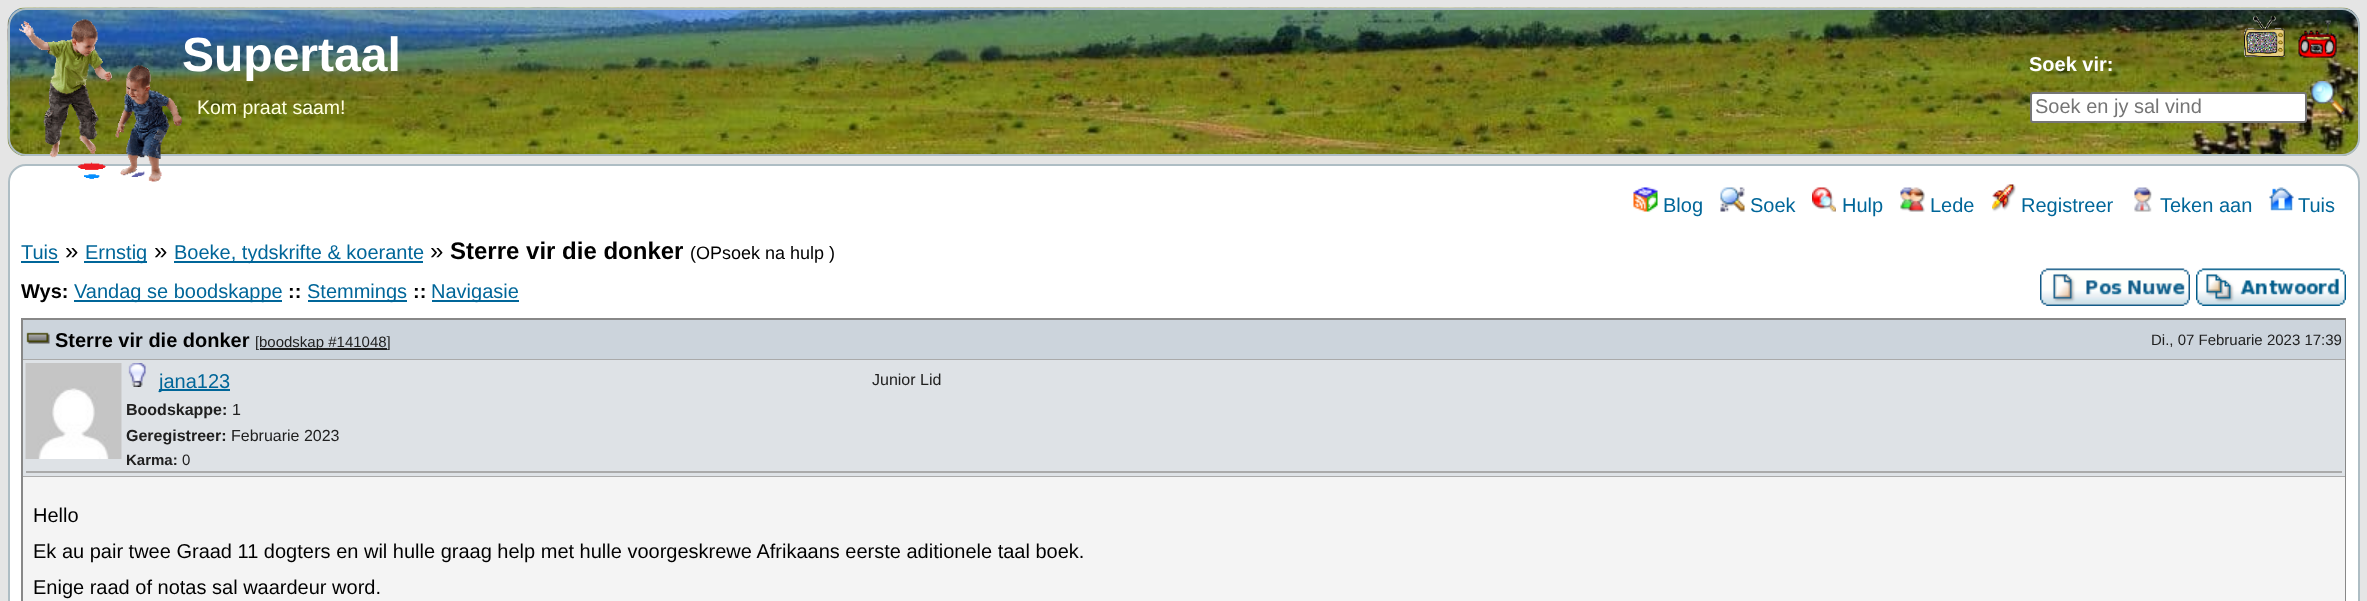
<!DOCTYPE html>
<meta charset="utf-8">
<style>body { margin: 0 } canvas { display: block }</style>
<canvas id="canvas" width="2367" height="601"></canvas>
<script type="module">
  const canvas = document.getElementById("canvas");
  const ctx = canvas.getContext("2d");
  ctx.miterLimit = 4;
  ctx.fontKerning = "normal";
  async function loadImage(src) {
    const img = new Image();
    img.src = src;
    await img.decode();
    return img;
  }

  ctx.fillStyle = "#e5e5e5";
  ctx.fillRect(0, 0, 2367, 601);
  ctx.drawImage(await loadImage("img1.png"), 7, 7, 2353, 149);
  ctx.beginPath();
  ctx.roundRect(9, 9, 2350, 146, 17);
  ctx.strokeStyle = "#aebdc4";
  ctx.lineWidth = 2;
  ctx.stroke();
  ctx.fillStyle = "#ffffff";
  ctx.beginPath();
  ctx.roundRect(9, 165, 2350, 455, 17);
  ctx.fill();
  ctx.stroke();
  ctx.drawImage(await loadImage("img2.png"), 19, 19, 163, 163);
  ctx.font = "bold 48px Liberation Sans";
  ctx.fillText("Supertaal", 182, 71);
  ctx.drawImage(await loadImage("img3.png"), 2244, 16, 41, 41);
  ctx.drawImage(await loadImage("img4.png"), 2298, 20, 39, 38);
  ctx.font = "bold 20px Liberation Sans";
  ctx.fillText("Soek vir:", 2029, 71);
  ctx.beginPath();
  ctx.roundRect(2031, 93, 275, 29, 2);
  ctx.fill();
  ctx.strokeStyle = "#767676";
  ctx.stroke();
  ctx.font = "20px Liberation Sans";
  ctx.fillStyle = "#757575";
  ctx.fillText("Soek en jy sal vind", 2035, 113);
  ctx.drawImage(await loadImage("img5.png"), 2311, 81, 34, 33);
  ctx.font = "19.5px Liberation Sans";
  ctx.fillStyle = "#ffffe0";
  ctx.fillText("Kom praat saam!", 197, 114);
  ctx.drawImage(await loadImage("img6.png"), 1633, 187, 25, 25);
  ctx.font = "20px Liberation Sans";
  ctx.fillStyle = "#006699";
  ctx.fillText("Blog", 1663, 212);
  ctx.drawImage(await loadImage("img7.png"), 1720, 187, 25, 25);
  ctx.fillText("Soek", 1750, 212);
  ctx.drawImage(await loadImage("img8.png"), 1812, 187, 24, 25);
  ctx.fillText("Hulp", 1842, 212);
  ctx.drawImage(await loadImage("img9.png"), 1900, 187, 25, 25);
  ctx.fillText("Lede", 1930, 212);
  ctx.drawImage(await loadImage("img10.png"), 1992, 184, 24, 28);
  ctx.fillText("Registreer", 2021, 212);
  ctx.drawImage(await loadImage("img11.png"), 2134, 187, 18, 25);
  ctx.fillText("Teken aan", 2160, 212);
  ctx.drawImage(await loadImage("img12.png"), 2269, 187, 25, 24);
  ctx.fillText("Tuis", 2298, 212);
  ctx.fillText("Tuis", 21, 259);
  ctx.fillRect(21, 261, 38, 2);
  ctx.font = "24px Liberation Sans";
  ctx.fillStyle = "#000000";
  ctx.fillText("»", 65, 259);
  ctx.fillStyle = "#006699";
  ctx.fillRect(84, 261, 63, 2);
  ctx.font = "20px Liberation Sans";
  ctx.fillText("Ernstig", 85, 259);
  ctx.font = "24px Liberation Sans";
  ctx.fillStyle = "#000000";
  ctx.fillText("»", 154, 259);
  ctx.fillStyle = "#006699";
  ctx.fillRect(174, 261, 249, 2);
  ctx.font = "20px Liberation Sans";
  ctx.fillText("Boeke, tydskrifte & koerante", 174, 259);
  ctx.font = "24px Liberation Sans";
  ctx.fillStyle = "#000000";
  ctx.fillText("»", 430, 259);
  ctx.font = "bold 24px Liberation Sans";
  ctx.fillText("Sterre vir die donker", 450, 259);
  ctx.font = "18px Liberation Sans";
  ctx.fillText("(OPsoek na hulp )", 690, 259);
  ctx.font = "bold 20px Liberation Sans";
  ctx.fillText("Wys:", 21, 298);
  ctx.fillStyle = "#006699";
  ctx.fillRect(74, 300, 208, 2);
  ctx.font = "20px Liberation Sans";
  ctx.fillText("Vandag se boodskappe", 74, 298);
  ctx.font = "bold 20px Liberation Sans";
  ctx.fillStyle = "#000000";
  ctx.fillText("::", 288, 298);
  ctx.fillStyle = "#006699";
  ctx.fillRect(308, 300, 99, 2);
  ctx.font = "20px Liberation Sans";
  ctx.fillText("Stemmings", 307, 298);
  ctx.font = "bold 20px Liberation Sans";
  ctx.fillStyle = "#000000";
  ctx.fillText("::", 413, 298);
  ctx.fillStyle = "#006699";
  ctx.fillRect(432, 300, 87, 2);
  ctx.font = "20px Liberation Sans";
  ctx.fillText("Navigasie", 431, 298);
  ctx.drawImage(await loadImage("img13.png"), 2040, 268, 150, 38);
  ctx.drawImage(await loadImage("img14.png"), 2196, 268, 150, 38);
  ctx.strokeStyle = "#888888";
  ctx.strokeRect(22, 319, 2323, 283);
  ctx.fillStyle = "#ccd4dc";
  ctx.fillRect(23, 320, 2322, 39);
  ctx.fillStyle = "#aaaaaa";
  ctx.fillRect(23, 359, 2322, 1);
  ctx.drawImage(await loadImage("img15.png"), 26, 332, 24, 12);
  ctx.font = "bold 20px Liberation Sans";
  ctx.fillStyle = "#000000";
  ctx.fillText("Sterre vir die donker", 55, 347);
  ctx.font = "15px Liberation Sans";
  ctx.fillStyle = "#202020";
  ctx.fillText("[", 255, 347);
  ctx.fillRect(260, 348, 127, 2);
  ctx.fillText("boodskap #141048]", 259, 347);
  ctx.fillText("Di., 07 Februarie 2023 17:39", 2151, 345);
  ctx.fillStyle = "#dee2e6";
  ctx.fillRect(23, 360, 2322, 116);
  ctx.fillStyle = "#aaaaaa";
  ctx.fillRect(23, 476, 2322, 1);
  ctx.fillRect(26, 471, 2316, 2);
  ctx.drawImage(await loadImage("img16.png"), 25, 363, 97, 96);
  ctx.drawImage(await loadImage("img17.png"), 128, 363, 18, 24);
  ctx.fillStyle = "#006699";
  ctx.fillRect(159, 389, 71, 2);
  ctx.font = "20px Liberation Sans";
  ctx.fillText("jana123", 159, 388);
  ctx.font = "bold 16px Liberation Sans";
  ctx.fillStyle = "#202020";
  ctx.fillText("Boodskappe:", 126, 415);
  ctx.font = "16px Liberation Sans";
  ctx.fillText("1", 232, 415);
  ctx.font = "bold 16px Liberation Sans";
  ctx.fillText("Geregistreer:", 126, 441);
  ctx.font = "16px Liberation Sans";
  ctx.fillText("Februarie 2023", 231, 441);
  ctx.font = "bold 15px Liberation Sans";
  ctx.fillText("Karma:", 126, 465);
  ctx.font = "15px Liberation Sans";
  ctx.fillText("0", 182, 465);
  ctx.font = "16px Liberation Sans";
  ctx.fillText("Junior Lid", 872, 385);
  ctx.fillStyle = "#f4f4f4";
  ctx.fillRect(23, 477, 2322, 124);
  ctx.font = "20px Liberation Sans";
  ctx.fillStyle = "#000000";
  ctx.fillText("Hello", 33, 522);
  ctx.fillText("Ek au pair twee Graad 11 dogters en wil hulle graag help met hulle voorgeskrewe Afrikaans eerste aditionele taal boek.", 33, 558);
  ctx.fillText("Enige raad of notas sal waardeur word.", 33, 594);
</script>
